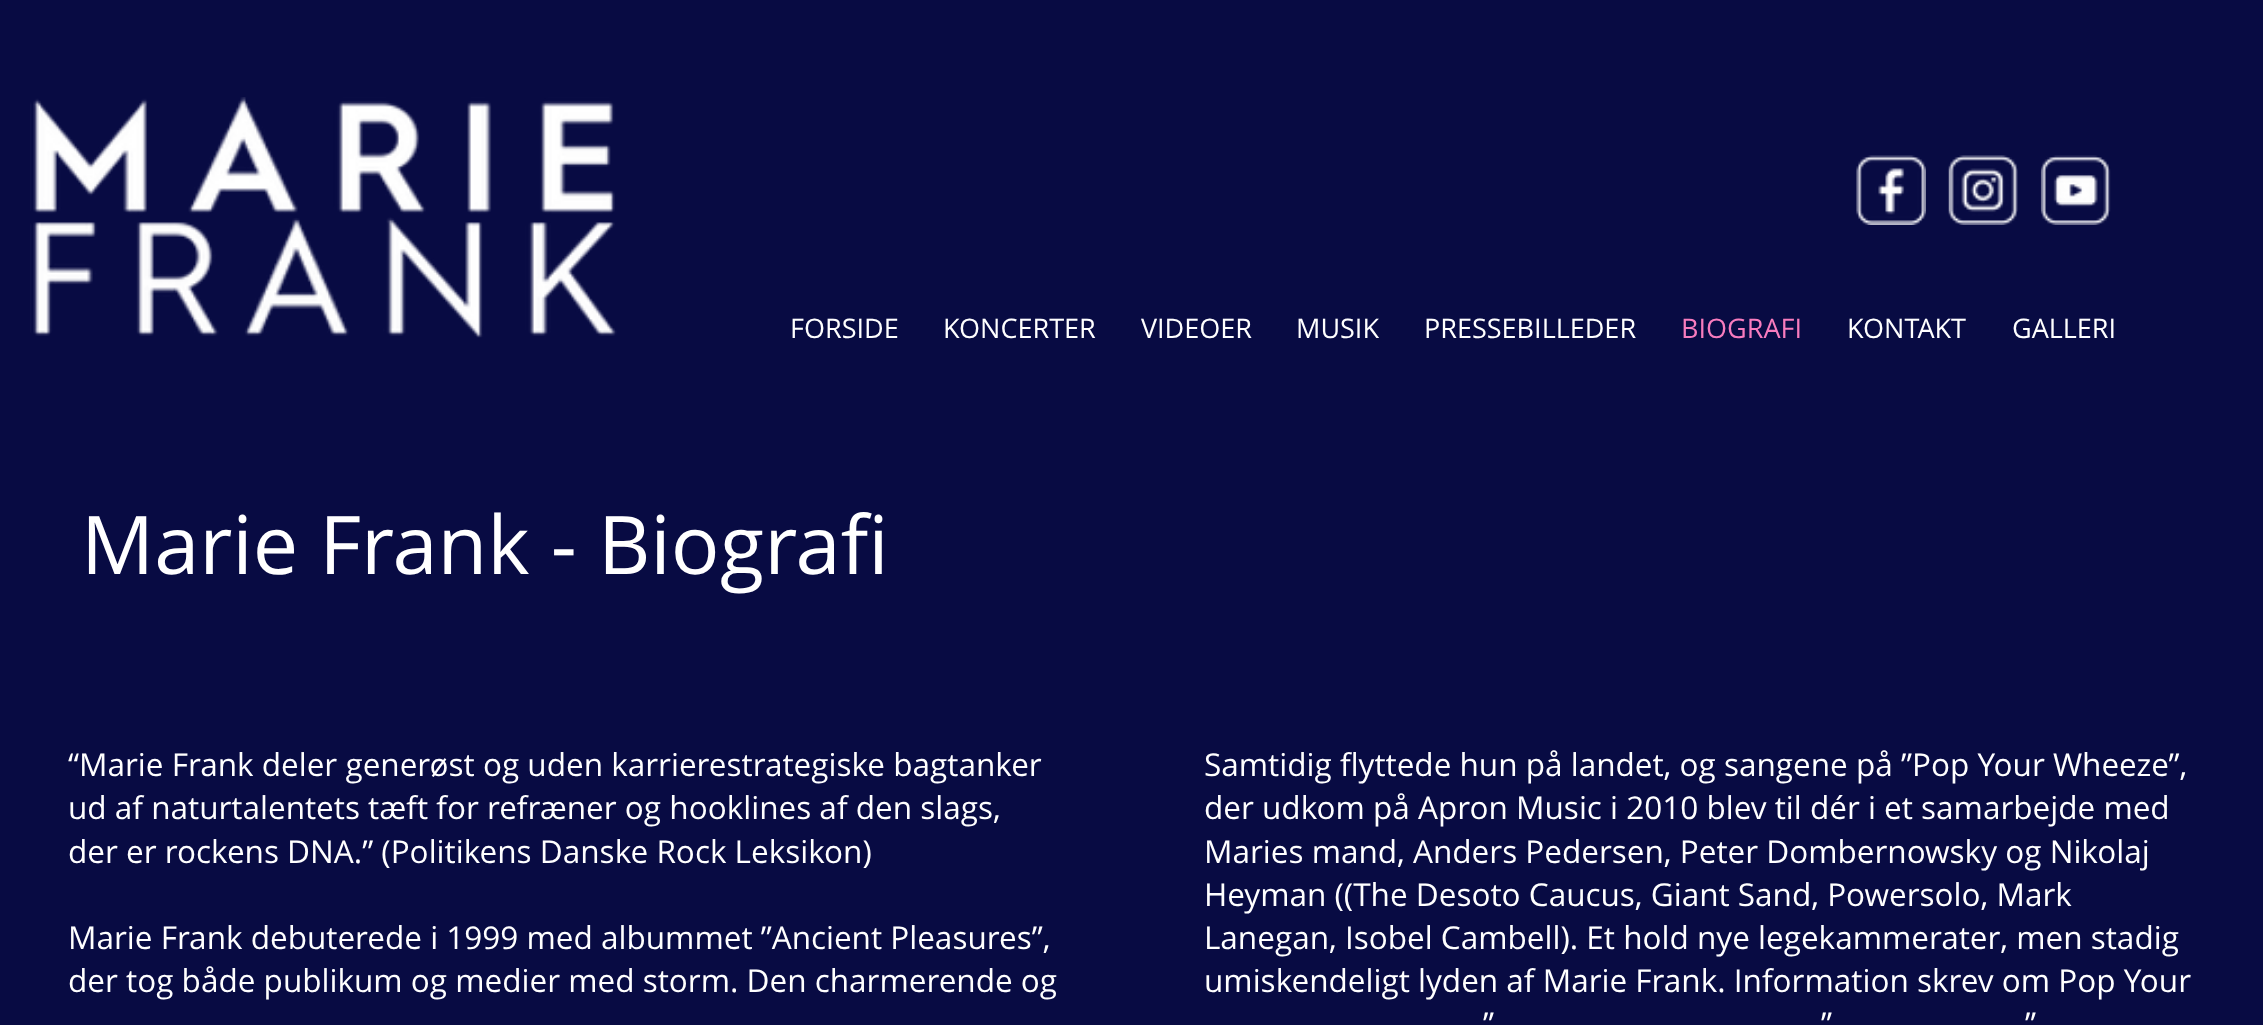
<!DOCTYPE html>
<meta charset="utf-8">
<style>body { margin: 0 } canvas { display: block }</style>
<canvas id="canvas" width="2263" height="1025"></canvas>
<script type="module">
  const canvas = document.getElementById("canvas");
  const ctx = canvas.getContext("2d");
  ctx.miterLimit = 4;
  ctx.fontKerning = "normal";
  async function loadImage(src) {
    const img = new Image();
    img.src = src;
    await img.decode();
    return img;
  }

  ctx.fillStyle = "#080b43";
  ctx.fillRect(0, 0, 2263, 1025);
  ctx.drawImage(await loadImage("img1.png"), 30, 97, 587, 241);
  ctx.drawImage(await loadImage("img2.png"), 1856, 155, 70, 70);
  ctx.drawImage(await loadImage("img3.png"), 1948, 155, 70, 70);
  ctx.drawImage(await loadImage("img4.png"), 2040, 155, 71, 70);
  ctx.font = "27px Open Sans";
  ctx.fillStyle = "#ffffff";
  ctx.fillText("FORSIDE", 790, 338);
  ctx.fillText("KONCERTER", 943, 338);
  ctx.fillText("VIDEOER", 1141, 338);
  ctx.fillText("MUSIK", 1296, 338);
  ctx.fillText("PRESSEBILLEDER", 1424, 338);
  ctx.fillStyle = "#f87cbe";
  ctx.fillText("BIOGRAFI", 1681, 338);
  ctx.fillStyle = "#ffffff";
  ctx.fillText("KONTAKT", 1847, 338);
  ctx.fillText("GALLERI", 2012, 338);
  ctx.font = "81px Open Sans";
  ctx.fillText("Marie Frank - Biografi", 81, 574);
  ctx.font = "31.5px Open Sans";
  ctx.fillText("“Marie Frank deler generøst og uden karrierestrategiske bagtanker", 68, 776);
  ctx.fillText("ud af naturtalentets tæft for refræner og hooklines af den slags,", 68, 819);
  ctx.fillText("der er rockens DNA.” (Politikens Danske Rock Leksikon)", 68, 863);
  ctx.fillText("Marie Frank debuterede i 1999 med albummet ”Ancient Pleasures”,", 68, 949);
  ctx.fillText("der tog både publikum og medier med storm. Den charmerende og", 68, 992);
  ctx.fillText("Samtidig flyttede hun på landet, og sangene på ”Pop Your Wheeze”,", 1204, 776);
  ctx.fillText("der udkom på Apron Music i 2010 blev til dér i et samarbejde med", 1204, 819);
  ctx.fillText("Maries mand, Anders Pedersen, Peter Dombernowsky og Nikolaj", 1204, 863);
  ctx.fillText("Heyman ((The Desoto Caucus, Giant Sand, Powersolo, Mark", 1204, 906);
  ctx.fillText("Lanegan, Isobel Cambell). Et hold nye legekammerater, men stadig", 1204, 949);
  ctx.fillText("umiskendeligt lyden af Marie Frank. Information skrev om Pop Your", 1204, 992);
  ctx.fillText("”", 1483, 1035);
  ctx.fillText("”", 1821, 1035);
  ctx.fillText("”", 2025, 1035);
</script>
